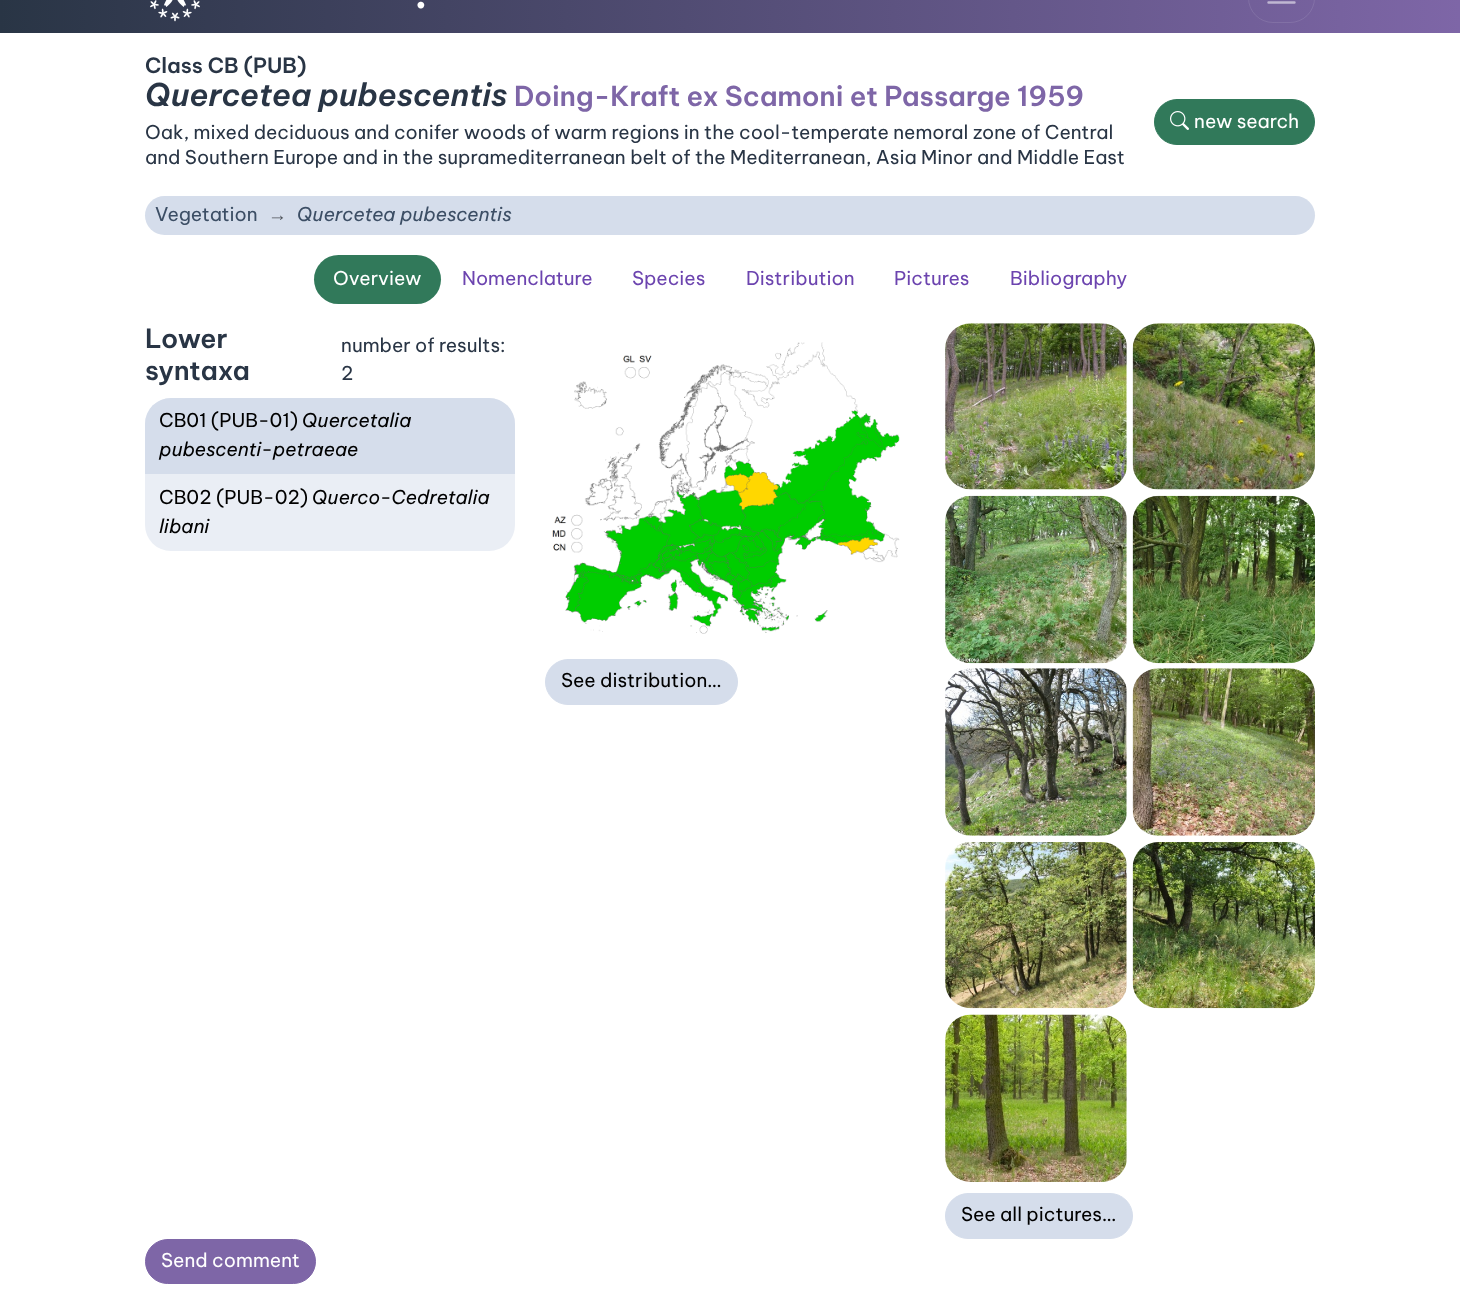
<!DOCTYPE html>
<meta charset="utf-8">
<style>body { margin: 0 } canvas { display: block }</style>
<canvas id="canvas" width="1460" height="1306"></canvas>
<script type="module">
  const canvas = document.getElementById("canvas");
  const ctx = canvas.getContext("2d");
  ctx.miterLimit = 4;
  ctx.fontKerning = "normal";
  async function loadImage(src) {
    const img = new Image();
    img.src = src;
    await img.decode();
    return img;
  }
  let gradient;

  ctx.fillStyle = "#ffffff";
  ctx.fillRect(0, 0, 1460, 1306);
  gradient = ctx.createLinearGradient(0, -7.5, 1460, -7.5);
  gradient.addColorStop(0, "#293545");
  gradient.addColorStop(1, "#7e66a7");
  ctx.fillStyle = gradient;
  ctx.fillRect(0, 0, 1460, 33);
  ctx.drawImage(await loadImage("img1.png"), 150, 0, 50, 22);
  ctx.font = "600 43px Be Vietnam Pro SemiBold";
  ctx.fillStyle = "#ffffff";
  ctx.fillText(".", 414, 8);
  ctx.beginPath();
  ctx.roundRect(1248.5, -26.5, 66, 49, 25.5);
  ctx.strokeStyle = "rgba(255, 255, 255, 0.1)";
  ctx.stroke();
  ctx.beginPath();
  ctx.moveTo(1268.5, -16.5);
  ctx.lineTo(1294.5, -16.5);
  ctx.moveTo(1268.5, -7);
  ctx.lineTo(1294.5, -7);
  ctx.moveTo(1268.5, 2.5);
  ctx.lineTo(1294.5, 2.5);
  ctx.strokeStyle = "#c0b7d2";
  ctx.lineWidth = 2.4;
  ctx.lineCap = "round";
  ctx.stroke();
  ctx.font = "600 21px Be Vietnam Pro SemiBold";
  ctx.fillStyle = "#293545";
  ctx.fillText("Class CB (PUB)", 145, 73);
  ctx.font = "italic 600 31.25px Be Vietnam Pro SemiBold";
  ctx.fillText("Quercetea pubescentis", 145, 106);
  ctx.font = "600 27.3px Be Vietnam Pro SemiBold";
  ctx.fillStyle = "#7e66a7";
  ctx.fillText("Doing-Kraft ex Scamoni et Passarge 1959", 514, 106);
  ctx.font = "19px Be Vietnam Pro";
  ctx.fillStyle = "#293545";
  ctx.fillText("Oak, mixed deciduous and conifer woods of warm regions in the cool-temperate nemoral zone of Central", 145, 139);
  ctx.fillText("and Southern Europe and in the supramediterranean belt of the Mediterranean, Asia Minor and Middle East", 145, 164);
  ctx.fillStyle = "#31795a";
  ctx.beginPath();
  ctx.roundRect(1154.5, 99.5, 160, 45, 22.5);
  ctx.fill();
  ctx.strokeStyle = "#31795a";
  ctx.lineWidth = 1;
  ctx.stroke();
  ctx.drawImage(await loadImage("img2.png"), 1170, 111, 19, 19);
  ctx.fillStyle = "#ffffff";
  ctx.fillText("new search", 1194, 128);
  ctx.fillStyle = "#d5ddeb";
  ctx.beginPath();
  ctx.roundRect(145, 196, 1170, 39, 19.5);
  ctx.fill();
  ctx.fillStyle = "#3c4e65";
  ctx.fillText("Vegetation", 155, 221);
  ctx.font = "19px Liberation Sans";
  ctx.fillStyle = "#4e535a";
  ctx.fillText("→", 268, 221);
  ctx.font = "italic 19px Be Vietnam Pro";
  ctx.fillStyle = "#3c4e65";
  ctx.fillText("Quercetea pubescentis", 297, 221);
  ctx.fillStyle = "#31795a";
  ctx.beginPath();
  ctx.roundRect(314, 255, 127, 49, 24.5);
  ctx.fill();
  ctx.font = "19px Be Vietnam Pro";
  ctx.fillStyle = "#ffffff";
  ctx.fillText("Overview", 333, 285);
  ctx.fillStyle = "#6c44af";
  ctx.fillText("Nomenclature", 462, 285);
  ctx.fillText("Species", 632, 285);
  ctx.fillText("Distribution", 746, 285);
  ctx.fillText("Pictures", 894, 285);
  ctx.fillText("Bibliography", 1010, 285);
  ctx.font = "600 26.5px Be Vietnam Pro SemiBold";
  ctx.fillStyle = "#293545";
  ctx.fillText("Lower", 145, 348);
  ctx.fillText("syntaxa", 145, 380);
  ctx.font = "19px Be Vietnam Pro";
  ctx.fillText("number of results:", 341, 352);
  ctx.fillText("2", 341, 380);
  ctx.fillStyle = "#eaeef5";
  ctx.beginPath();
  ctx.roundRect(145, 398, 370, 153, 26);
  ctx.fill();
  ctx.fillStyle = "#d5ddeb";
  ctx.beginPath();
  ctx.roundRect(145, 398, 370, 76, [26, 26, 0, 0]);
  ctx.fill();
  ctx.fillStyle = "#000000";
  ctx.fillText("CB01 (PUB-01)", 159, 427);
  ctx.font = "italic 19px Be Vietnam Pro";
  ctx.fillText("Quercetalia", 302, 427);
  ctx.fillText("pubescenti-petraeae", 159, 456);
  ctx.font = "19px Be Vietnam Pro";
  ctx.fillText("CB02 (PUB-02)", 159, 504);
  ctx.font = "italic 19px Be Vietnam Pro";
  ctx.fillText("Querco-Cedretalia", 312, 504);
  ctx.fillText("libani", 159, 533);
  ctx.drawImage(await loadImage("img3.png"), 552, 342, 348, 292);
  ctx.fillStyle = "#d5ddeb";
  ctx.beginPath();
  ctx.roundRect(545.5, 659.5, 192, 45, 22.5);
  ctx.fill();
  ctx.strokeStyle = "#d5ddeb";
  ctx.stroke();
  ctx.font = "19px Be Vietnam Pro";
  ctx.fillStyle = "#000000";
  ctx.fillText("See distribution…", 561, 687);
  ctx.drawImage(await loadImage("img4.png"), 945, 323, 182, 167);
  ctx.drawImage(await loadImage("img5.png"), 1132, 323, 183, 167);
  ctx.drawImage(await loadImage("img6.png"), 945, 495, 182, 169);
  ctx.drawImage(await loadImage("img7.png"), 1132, 495, 183, 169);
  ctx.drawImage(await loadImage("img8.png"), 945, 668, 182, 168);
  ctx.drawImage(await loadImage("img9.png"), 1132, 668, 183, 168);
  ctx.drawImage(await loadImage("img10.png"), 945, 842, 182, 167);
  ctx.drawImage(await loadImage("img11.png"), 1132, 842, 183, 167);
  ctx.drawImage(await loadImage("img12.png"), 945, 1014, 182, 168);
  ctx.fillStyle = "#d5ddeb";
  ctx.beginPath();
  ctx.roundRect(945.5, 1193.5, 187, 45, 22.5);
  ctx.fill();
  ctx.stroke();
  ctx.fillStyle = "#000000";
  ctx.fillText("See all pictures…", 961, 1221);
  ctx.fillStyle = "#7e66a7";
  ctx.beginPath();
  ctx.roundRect(145.5, 1239.5, 170, 44, 22);
  ctx.fill();
  ctx.strokeStyle = "#7e66a7";
  ctx.stroke();
  ctx.fillStyle = "#ffffff";
  ctx.fillText("Send comment", 161, 1267);
</script>
